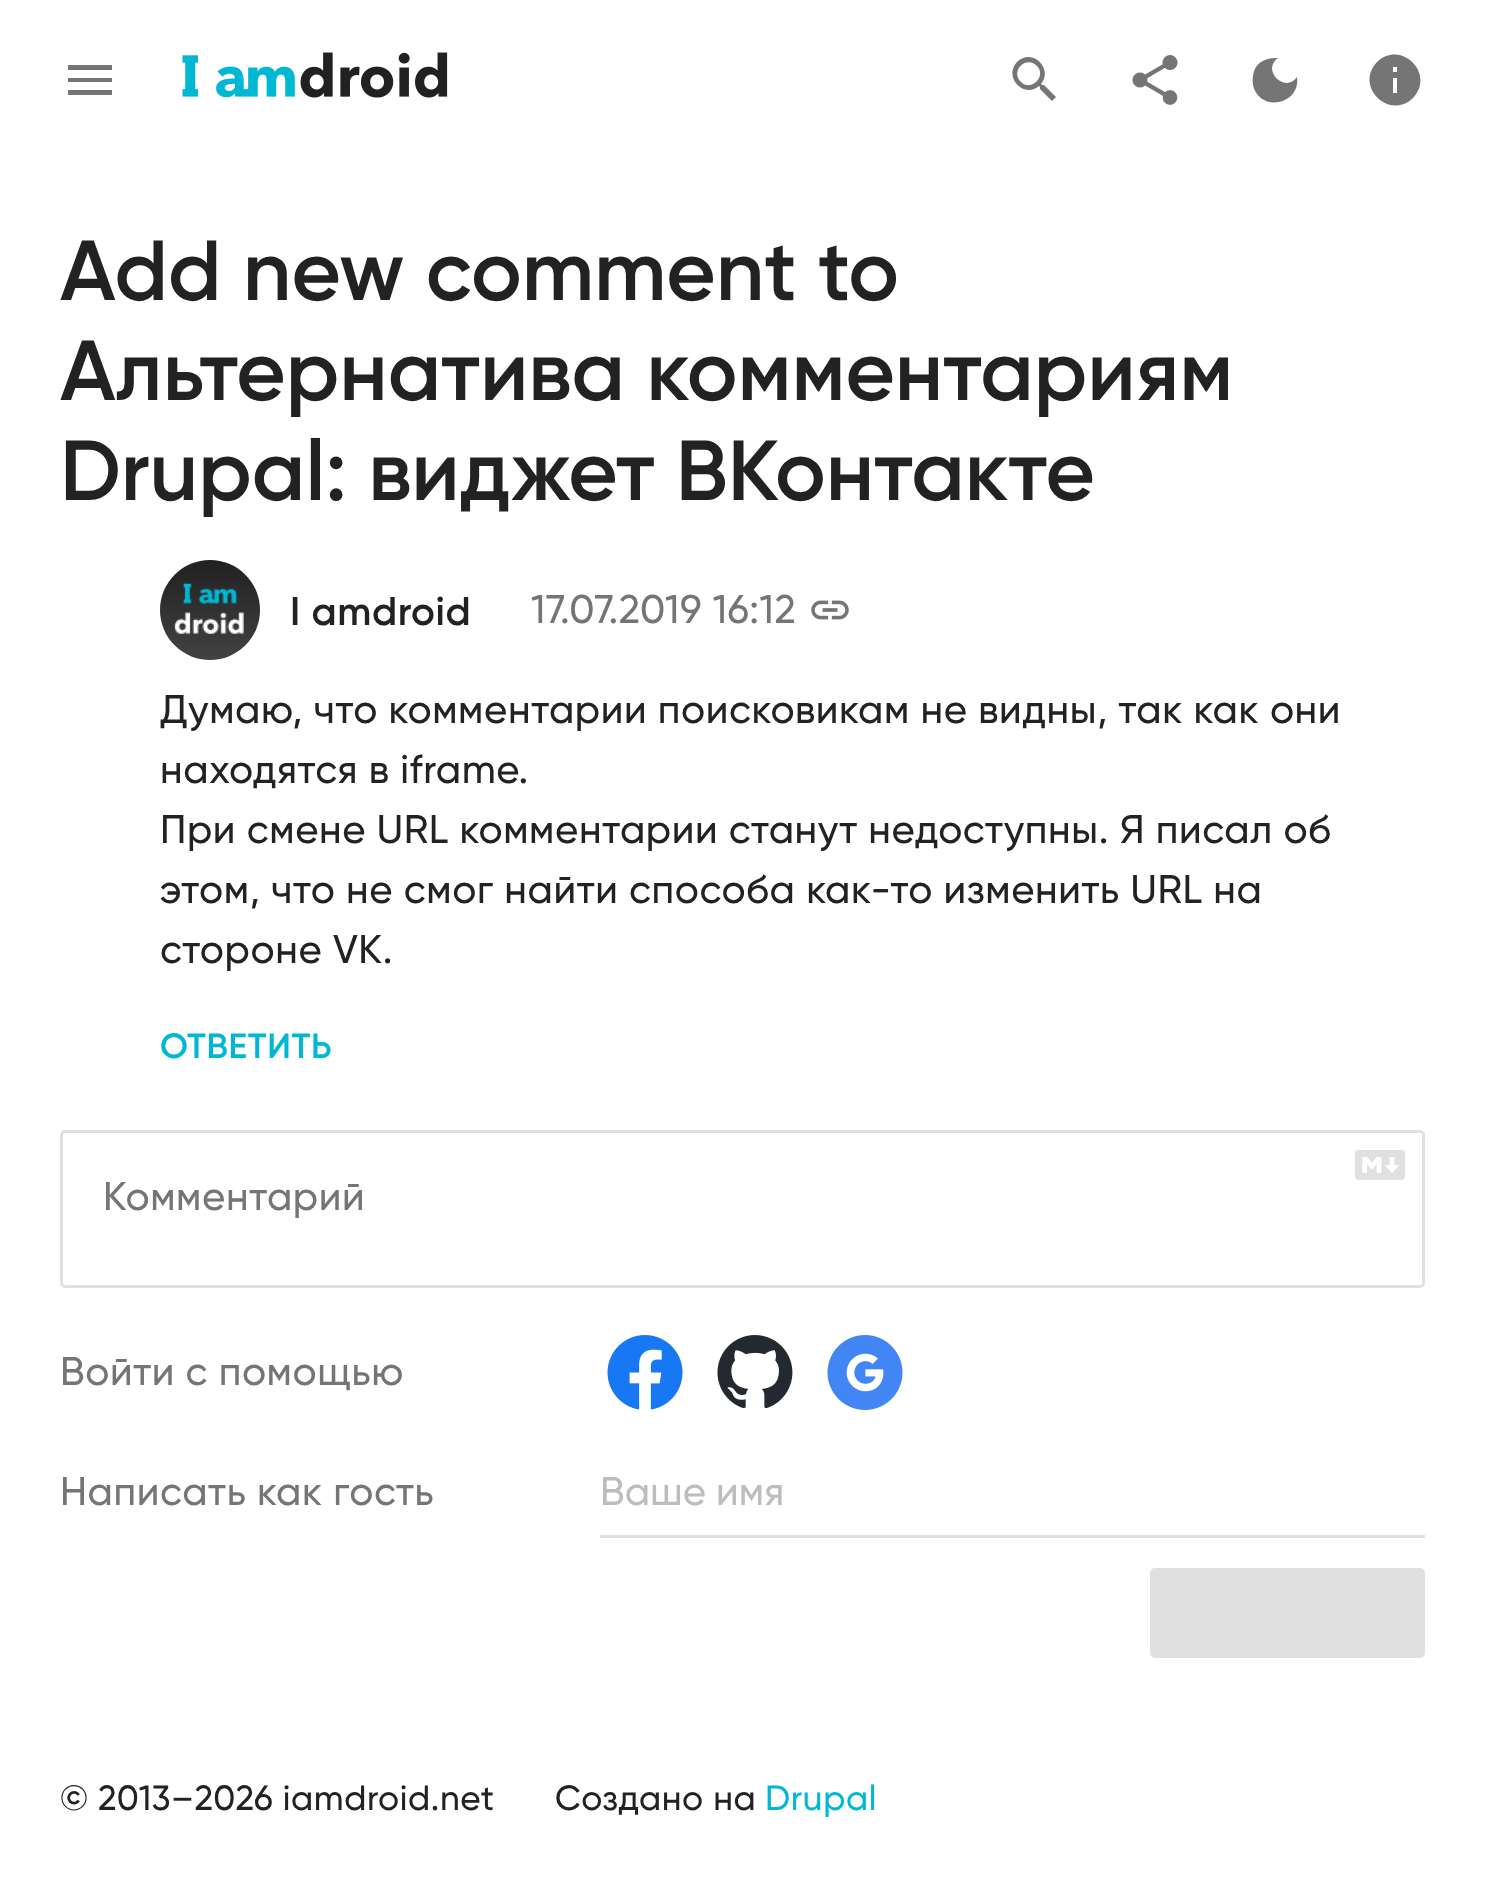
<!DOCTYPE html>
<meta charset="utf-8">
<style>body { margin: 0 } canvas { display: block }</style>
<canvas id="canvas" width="1485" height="1888"></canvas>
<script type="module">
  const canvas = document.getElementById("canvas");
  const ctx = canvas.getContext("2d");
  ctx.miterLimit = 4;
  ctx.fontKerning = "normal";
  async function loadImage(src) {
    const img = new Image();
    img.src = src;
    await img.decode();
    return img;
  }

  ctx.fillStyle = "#ffffff";
  ctx.fillRect(0, 0, 1485, 1888);
  ctx.fillStyle = "#757575";
  ctx.beginPath();
  ctx.moveTo(68, 65);
  ctx.lineTo(112, 65);
  ctx.lineTo(112, 70);
  ctx.lineTo(68, 70);
  ctx.closePath();
  ctx.moveTo(68, 82);
  ctx.lineTo(68, 78);
  ctx.lineTo(112, 78);
  ctx.lineTo(112, 82);
  ctx.closePath();
  ctx.moveTo(68, 95);
  ctx.lineTo(68, 90);
  ctx.lineTo(112, 90);
  ctx.lineTo(112, 95);
  ctx.closePath();
  ctx.fill();
  ctx.drawImage(await loadImage("img1.png"), 182, 52, 266, 46);
  ctx.beginPath();
  ctx.moveTo(1021, 82);
  ctx.bezierCurveTo(1031, 92, 1047, 76, 1037, 66);
  ctx.bezierCurveTo(1026, 55, 1010, 71, 1021, 82);
  ctx.closePath();
  ctx.moveTo(1044, 85);
  ctx.lineTo(1056, 97);
  ctx.lineTo(1052, 101);
  ctx.lineTo(1040, 89);
  ctx.lineTo(1040, 87);
  ctx.lineTo(1039, 86);
  ctx.bezierCurveTo(1024, 99, 1003, 77, 1017, 62);
  ctx.bezierCurveTo(1032, 47, 1054, 69, 1041, 84);
  ctx.lineTo(1042, 85);
  ctx.closePath();
  ctx.fill();
  ctx.drawImage(await loadImage("img2.png"), 1132, 55, 46, 50);
  ctx.beginPath();
  ctx.moveTo(1275, 58);
  ctx.bezierCurveTo(1268, 58, 1260, 61, 1256, 67);
  ctx.bezierCurveTo(1253, 72, 1252, 79, 1253, 85);
  ctx.bezierCurveTo(1259, 113, 1301, 105, 1297, 77);
  ctx.bezierCurveTo(1285, 94, 1261, 70, 1278, 58);
  ctx.closePath();
  ctx.fill();
  ctx.beginPath();
  ctx.moveTo(1397, 72);
  ctx.lineTo(1397, 67);
  ctx.lineTo(1393, 67);
  ctx.lineTo(1393, 72);
  ctx.closePath();
  ctx.moveTo(1397, 93);
  ctx.lineTo(1397, 78);
  ctx.lineTo(1393, 78);
  ctx.lineTo(1393, 93);
  ctx.closePath();
  ctx.moveTo(1377, 62);
  ctx.bezierCurveTo(1401, 39, 1436, 74, 1413, 98);
  ctx.bezierCurveTo(1389, 121, 1354, 86, 1377, 62);
  ctx.closePath();
  ctx.fill();
  ctx.font = "600 85px Gilroy";
  ctx.fillStyle = "#222222";
  ctx.fillText("Add new comment to", 60, 300);
  ctx.fillText("Альтернатива комментариям", 60, 400);
  ctx.fillText("Drupal: виджет ВКонтакте", 60, 500);
  ctx.drawImage(await loadImage("img3.png"), 160, 560, 100, 100);
  ctx.letterSpacing = "0.62px";
  ctx.font = "600 40px Gilroy";
  ctx.fillText("I amdroid", 290, 625);
  ctx.font = "500 40px Gilroy";
  ctx.fillStyle = "#757575";
  ctx.fillText("17.07.2019 16:12", 531, 623);
  ctx.drawImage(await loadImage("img4.png"), 811, 600, 38, 20);
  ctx.fillStyle = "#222222";
  ctx.fillText("Думаю, что комментарии поисковикам не видны, так как они", 160, 723);
  ctx.fillText("находятся в iframe.", 160, 783);
  ctx.fillText("При смене URL комментарии станут недоступны. Я писал об", 160, 843);
  ctx.fillText("этом, что не смог найти способа как-то изменить URL на", 160, 903);
  ctx.fillText("стороне VK.", 160, 963);
  ctx.font = "600 35px Gilroy";
  ctx.fillStyle = "#00b8d4";
  ctx.fillText("ОТВЕТИТЬ", 160, 1058);
  ctx.beginPath();
  ctx.roundRect(61.5, 1131.5, 1362, 155, 3.5);
  ctx.strokeStyle = "#e0e0e0";
  ctx.lineWidth = 3;
  ctx.stroke();
  ctx.drawImage(await loadImage("img5.png"), 1355, 1150, 50, 30);
  ctx.font = "500 40px Gilroy";
  ctx.fillStyle = "#757575";
  ctx.fillText("Комментарий", 103, 1210);
  ctx.fillText("Войти с помощью", 60, 1385);
  ctx.drawImage(await loadImage("img6.png"), 607, 1335, 76, 75);
  ctx.drawImage(await loadImage("img7.png"), 717, 1335, 76, 74);
  ctx.drawImage(await loadImage("img8.png"), 827, 1335, 76, 75);
  ctx.fillText("Написать как гость", 60, 1505);
  ctx.fillStyle = "#e0e0e0";
  ctx.fillRect(600, 1535, 825, 3);
  ctx.letterSpacing = "0px";
  ctx.fillStyle = "#bdbdbd";
  ctx.fillText("Ваше имя", 600, 1505);
  ctx.fillStyle = "#e0e0e0";
  ctx.beginPath();
  ctx.roundRect(1150, 1568, 275, 90, 5);
  ctx.fill();
  ctx.letterSpacing = "0.62px";
  ctx.font = "500 35px Gilroy";
  ctx.fillStyle = "#222222";
  ctx.fillText("© 2013–2026 iamdroid.net", 60, 1810);
  ctx.fillText("Создано на", 555, 1810);
  ctx.fillStyle = "#00b8d4";
  ctx.fillText("Drupal", 765, 1810);
</script>
